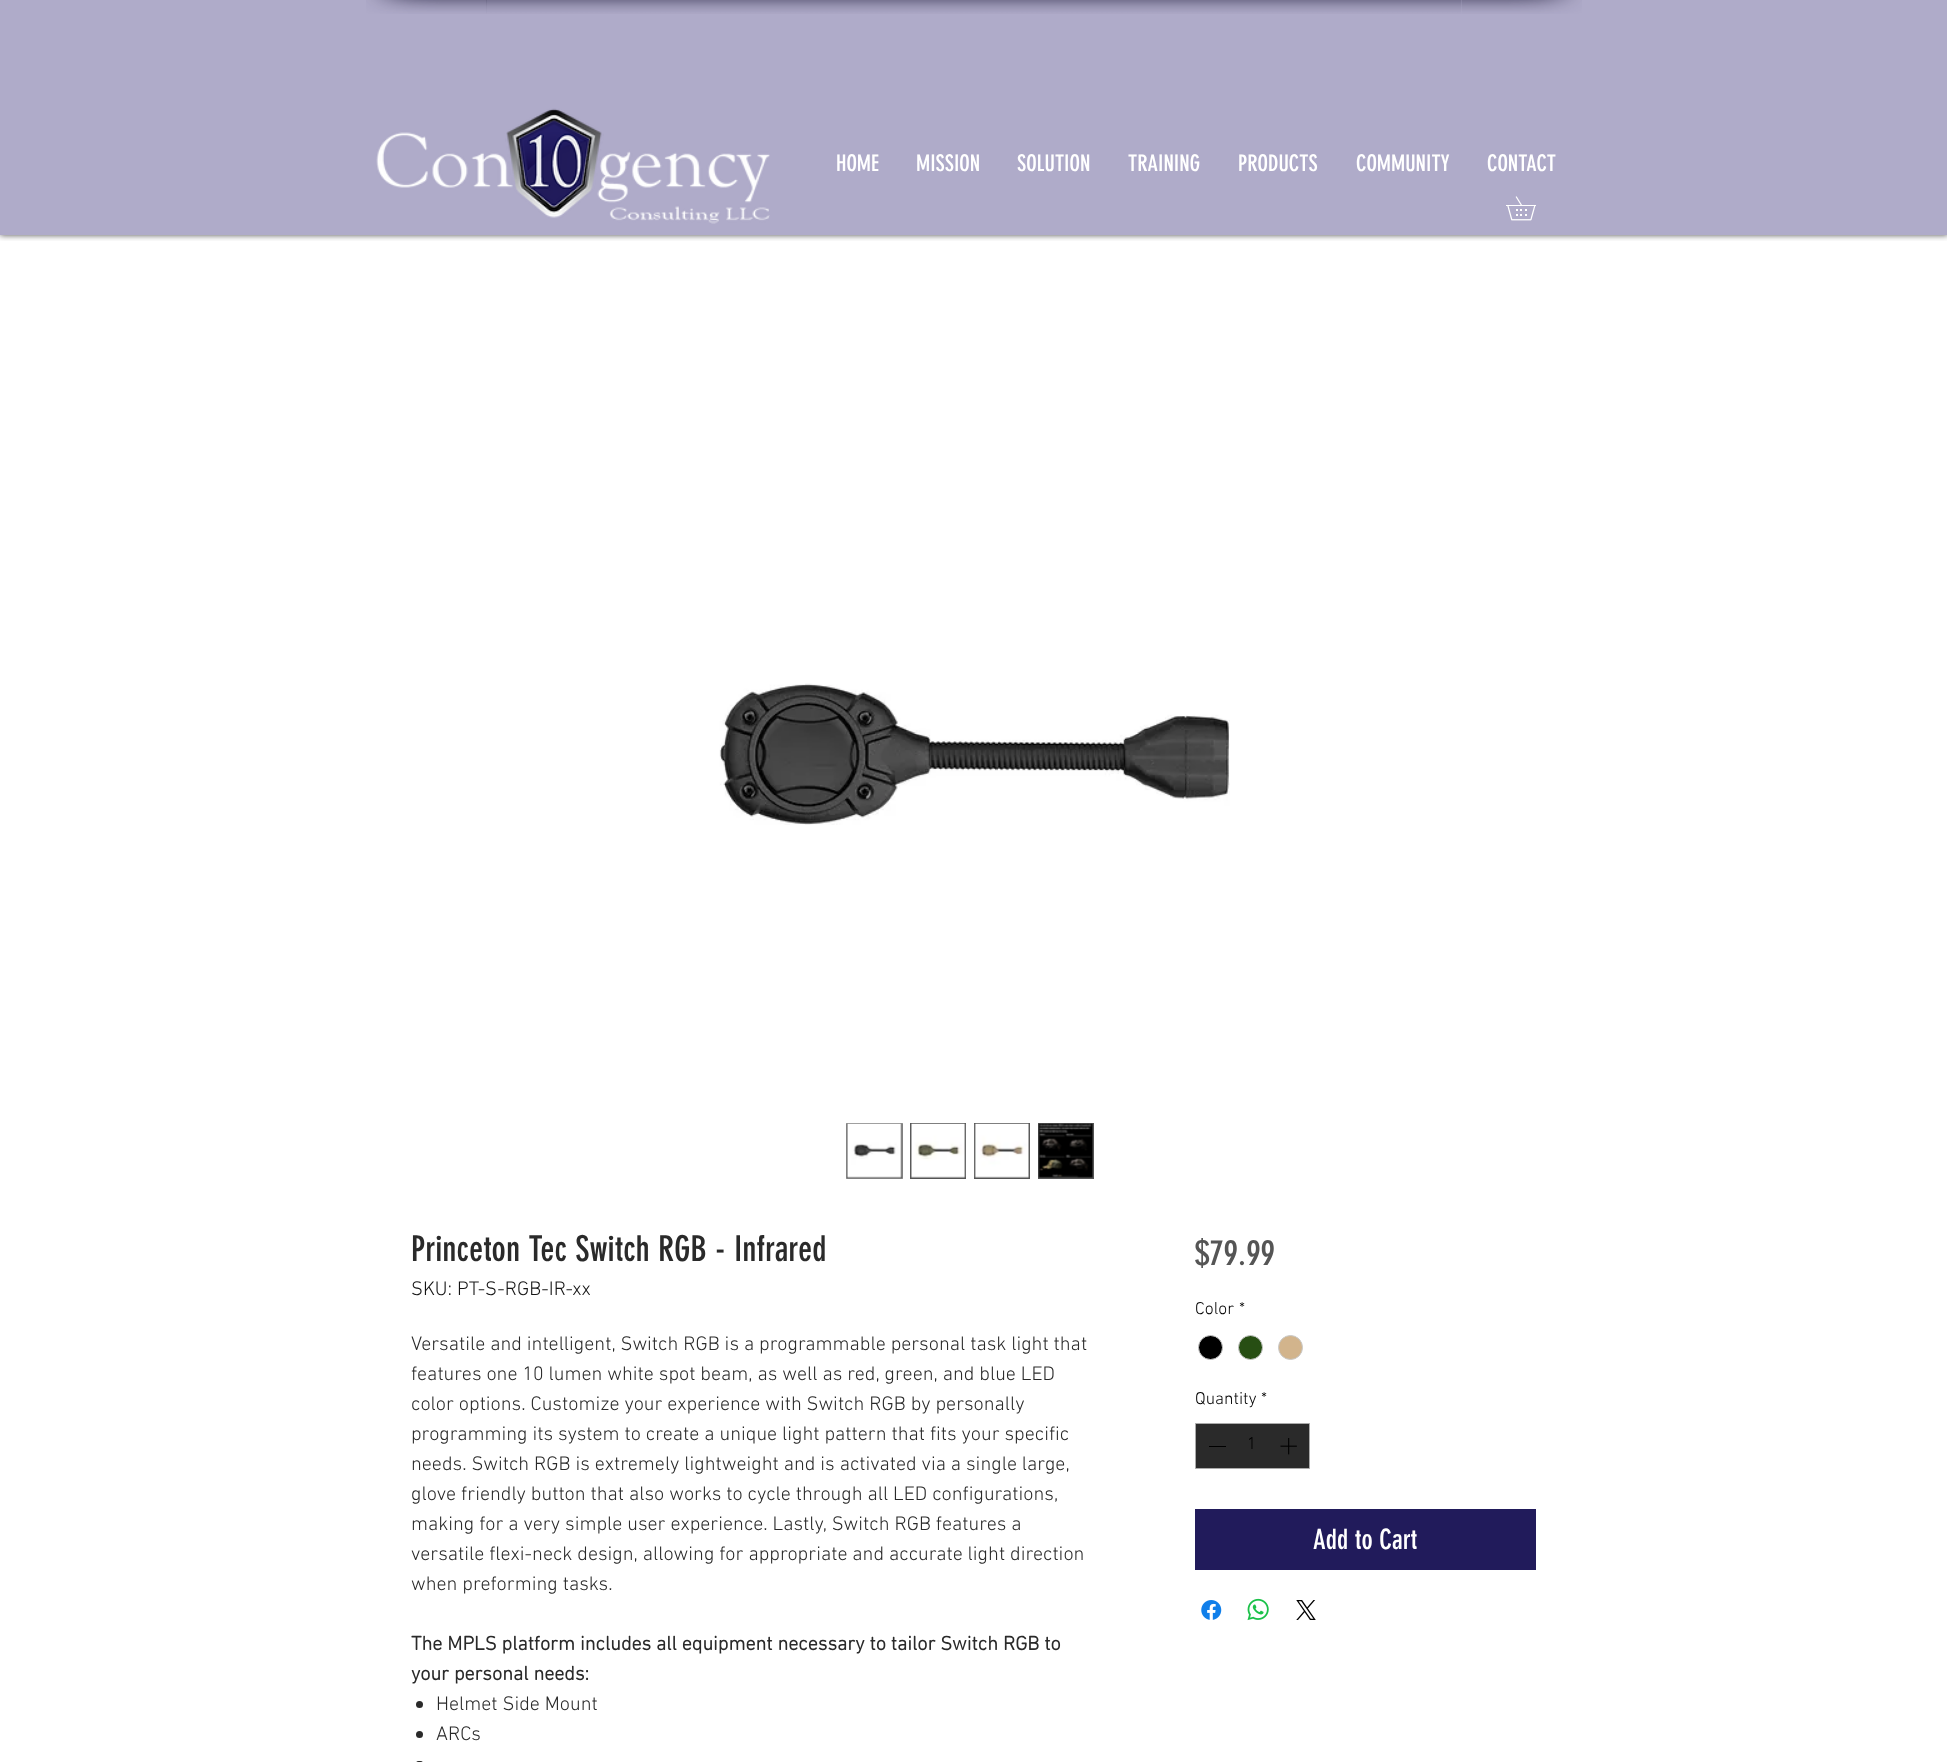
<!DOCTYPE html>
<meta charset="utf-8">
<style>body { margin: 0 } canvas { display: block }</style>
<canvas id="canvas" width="1947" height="1762"></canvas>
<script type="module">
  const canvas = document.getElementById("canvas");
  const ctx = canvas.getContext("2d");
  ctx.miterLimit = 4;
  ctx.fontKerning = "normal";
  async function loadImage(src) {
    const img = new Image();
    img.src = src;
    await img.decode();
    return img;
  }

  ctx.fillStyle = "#ffffff";
  ctx.fillRect(0, 0, 1947, 1762);
  ctx.fillStyle = "#afabc9";
  ctx.fillRect(0, 0, 1947, 235);
  ctx.drawImage(await loadImage("img1.png"), 366, 0, 121, 14);
  ctx.drawImage(await loadImage("img2.png"), 486, 0, 975, 14);
  ctx.drawImage(await loadImage("img3.png"), 1461, 0, 121, 14);
  ctx.save();
  ctx.beginPath();
  ctx.rect(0, 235, 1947, 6);
  ctx.clip();
  ctx.fillStyle = "rgba(0, 0, 0, 0.7)";
  ctx.filter = "blur(3px)";
  ctx.beginPath();
  ctx.rect(0, 0, 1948, 235);
  ctx.fill();
  ctx.filter = "none";
  ctx.restore();
  ctx.drawImage(await loadImage("img4.png"), 376, 108, 394, 116);
  ctx.font = "22.5px 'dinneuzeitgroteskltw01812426'";
  ctx.fillStyle = "#ffffff";
  ctx.fillText("HOME", 836, 171);
  ctx.fillText("MISSION", 916, 171);
  ctx.fillText("SOLUTION", 1017, 171);
  ctx.fillText("TRAINING", 1128, 171);
  ctx.fillText("PRODUCTS", 1238, 171);
  ctx.fillText("COMMUNITY", 1356, 171);
  ctx.fillText("CONTACT", 1487, 171);
  ctx.drawImage(await loadImage("img5.png"), 1506, 196, 30, 25);
  ctx.drawImage(await loadImage("img6.png"), 719, 683, 511, 142);
  ctx.fillStyle = "#555555";
  ctx.beginPath();
  ctx.rect(846.5, 1123.5, 56, 55);
  ctx.fill();
  ctx.strokeStyle = "#808080";
  ctx.stroke();
  ctx.drawImage(await loadImage("img7.png"), 847, 1123, 55, 55);
  ctx.fillRect(910, 1123, 56, 56);
  ctx.drawImage(await loadImage("img8.png"), 910, 1123, 56, 55);
  ctx.fillRect(974, 1123, 56, 56);
  ctx.drawImage(await loadImage("img9.png"), 974, 1123, 56, 55);
  ctx.fillRect(1038, 1123, 56, 56);
  ctx.drawImage(await loadImage("img10.png"), 1038, 1123, 55, 55);
  ctx.font = "35px 'dinneuzeitgroteskltw01812426'";
  ctx.fillStyle = "#2a2a2a";
  ctx.fillText("Princeton Tec Switch RGB - Infrared", 411, 1261);
  ctx.font = "300 20px 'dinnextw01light'";
  ctx.fillStyle = "#141414";
  ctx.fillText("SKU: PT-S-RGB-IR-xx", 411, 1295);
  ctx.fillStyle = "#2a2a2a";
  ctx.fillText("Versatile and intelligent, Switch RGB is a programmable personal task light that", 411, 1350);
  ctx.fillText("features one 10 lumen white spot beam, as well as red, green, and blue LED", 411, 1380);
  ctx.fillText("color options. Customize your experience with Switch RGB by personally", 411, 1410);
  ctx.fillText("programming its system to create a unique light pattern that fits your specific", 411, 1440);
  ctx.fillText("needs. Switch RGB is extremely lightweight and is activated via a single large,", 411, 1470);
  ctx.fillText("glove friendly button that also works to cycle through all LED configurations,", 411, 1500);
  ctx.fillText("making for a very simple user experience. Lastly, Switch RGB features a", 411, 1530);
  ctx.fillText("versatile flexi-neck design, allowing for appropriate and accurate light direction", 411, 1560);
  ctx.fillText("when preforming tasks.", 411, 1590);
  ctx.font = "bold 20px 'dinnextw01light'";
  ctx.fillText("The MPLS platform includes all equipment necessary to tailor Switch RGB to", 411, 1650);
  ctx.fillText("your personal needs:", 411, 1680);
  ctx.beginPath();
  ctx.arc(419.5, 1704.5, 3.5, 0, Math.PI * 2);
  ctx.fill();
  ctx.font = "300 20px 'dinnextw01light'";
  ctx.fillText("Helmet Side Mount", 436, 1710);
  ctx.beginPath();
  ctx.arc(419.5, 1734.5, 3.5, 0, Math.PI * 2);
  ctx.fill();
  ctx.fillText("ARCs", 436, 1740);
  ctx.beginPath();
  ctx.roundRect(416, 1761, 7, 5, 3.5);
  ctx.fill();
  ctx.font = "35px 'dinneuzeitgroteskltw01812426'";
  ctx.fillStyle = "#555555";
  ctx.fillText("$79.99", 1195, 1265);
  ctx.font = "300 17.5px 'dinnextw01light'";
  ctx.fillStyle = "#000000";
  ctx.fillText("Color", 1195, 1314);
  ctx.fillText("*", 1239, 1314);
  ctx.beginPath();
  ctx.arc(1210.5, 1347.5, 12, 0, Math.PI * 2);
  ctx.fill();
  ctx.strokeStyle = "#c9c9c9";
  ctx.stroke();
  ctx.fillStyle = "#274e13";
  ctx.beginPath();
  ctx.arc(1250.5, 1347.5, 12, 0, Math.PI * 2);
  ctx.fill();
  ctx.stroke();
  ctx.fillStyle = "#d2b48c";
  ctx.beginPath();
  ctx.arc(1290.5, 1347.5, 12, 0, Math.PI * 2);
  ctx.fill();
  ctx.stroke();
  ctx.fillStyle = "#000000";
  ctx.fillText("Quantity", 1195, 1404);
  ctx.fillText("*", 1261, 1404);
  ctx.fillStyle = "#2a2a2a";
  ctx.beginPath();
  ctx.rect(1195.5, 1423.5, 114, 45);
  ctx.fill();
  ctx.strokeStyle = "#aaaaaa";
  ctx.stroke();
  ctx.fillStyle = "#000000";
  ctx.fillRect(1209, 1446, 17, 1);
  ctx.fillText("1", 1247, 1449);
  ctx.drawImage(await loadImage("img11.png"), 1280, 1438, 17, 17);
  ctx.fillStyle = "#211b5b";
  ctx.fillRect(1195, 1509, 341, 61);
  ctx.font = "27.5px 'dinneuzeitgroteskltw01812426'";
  ctx.fillStyle = "#ffffff";
  ctx.fillText("Add to Cart", 1313, 1549);
  ctx.drawImage(await loadImage("img12.png"), 1201, 1600, 21, 20);
  ctx.drawImage(await loadImage("img13.png"), 1247, 1598, 22, 23);
  ctx.drawImage(await loadImage("img14.png"), 1296, 1600, 20, 20);
</script>
